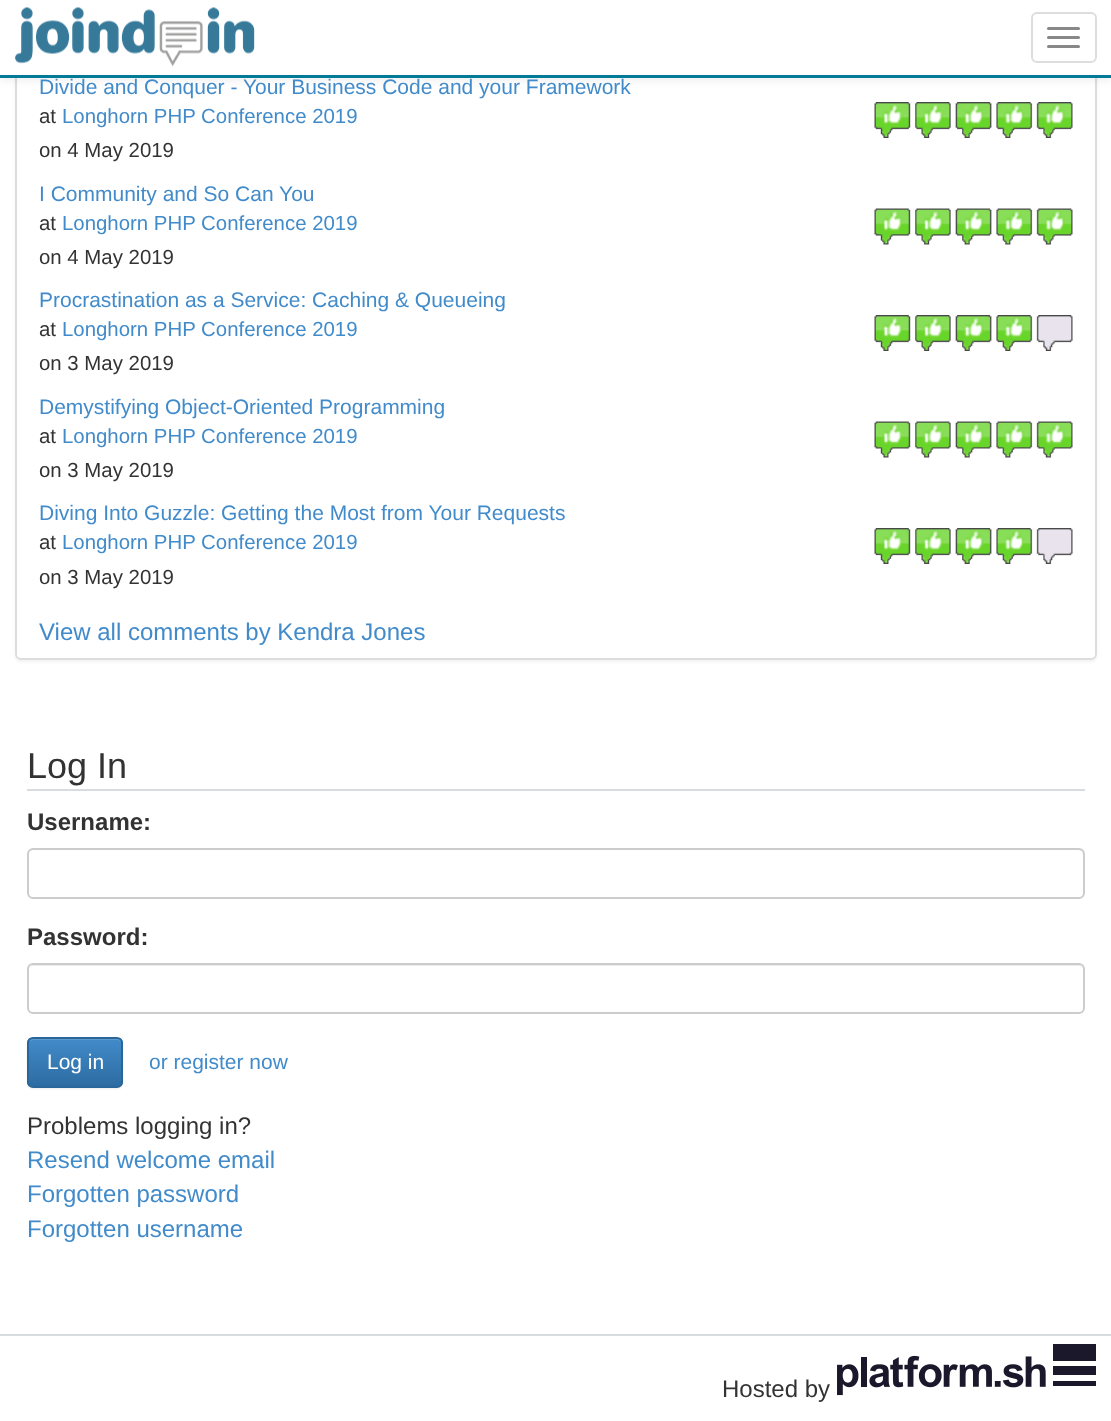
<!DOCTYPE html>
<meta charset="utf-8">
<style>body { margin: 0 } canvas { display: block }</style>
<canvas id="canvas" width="1111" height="1421"></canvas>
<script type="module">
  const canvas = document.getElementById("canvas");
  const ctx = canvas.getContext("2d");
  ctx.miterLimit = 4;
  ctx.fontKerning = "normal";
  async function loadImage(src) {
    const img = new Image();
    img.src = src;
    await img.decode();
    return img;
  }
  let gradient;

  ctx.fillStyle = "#ffffff";
  ctx.fillRect(0, 0, 1111, 1421);
  ctx.fillStyle = "rgba(0, 0, 0, 0.05)";
  ctx.filter = "blur(1.5px)";
  ctx.beginPath();
  ctx.roundRect(15, -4, 1082, 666, 6);
  ctx.fill();
  ctx.filter = "none";
  ctx.fillStyle = "#ffffff";
  ctx.beginPath();
  ctx.roundRect(16, -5, 1080, 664, 5);
  ctx.fill();
  ctx.strokeStyle = "#dddddd";
  ctx.lineWidth = 2;
  ctx.stroke();
  ctx.fillStyle = "rgba(0, 0, 0, 0.07)";
  ctx.filter = "blur(4px)";
  ctx.beginPath();
  ctx.rect(0, 2, 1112, 78);
  ctx.fill();
  ctx.filter = "none";
  ctx.fillStyle = "#ffffff";
  ctx.fillRect(0, 0, 1111, 75);
  ctx.fillStyle = "#007b97";
  ctx.fillRect(0, 75, 1111, 3);
  ctx.drawImage(await loadImage("img1.png"), 15, 7, 240, 60);
  ctx.beginPath();
  ctx.roundRect(1032, 13, 64, 49, 5);
  ctx.stroke();
  ctx.fillStyle = "#888888";
  ctx.beginPath();
  ctx.roundRect(1047, 27, 33, 3, 1.5);
  ctx.fill();
  ctx.beginPath();
  ctx.roundRect(1047, 36, 33, 3, 1.5);
  ctx.fill();
  ctx.beginPath();
  ctx.roundRect(1047, 45, 33, 3, 1.5);
  ctx.fill();
  ctx.font = "21px Liberation Sans";
  ctx.fillStyle = "#428bca";
  ctx.fillText("Divide and Conquer - Your Business Code and your Framework", 39, 94);
  ctx.font = "20.4px Liberation Sans";
  ctx.fillStyle = "#333333";
  ctx.fillText("at", 39, 123);
  ctx.fillStyle = "#428bca";
  ctx.fillText("Longhorn PHP Conference 2019", 62, 123);
  ctx.drawImage(await loadImage("img2.png"), 874, 102, 199, 36);
  ctx.fillStyle = "#333333";
  ctx.fillText("on 4 May 2019", 39, 157);
  ctx.font = "21px Liberation Sans";
  ctx.fillStyle = "#428bca";
  ctx.fillText("I Community and So Can You", 39, 201);
  ctx.font = "20.4px Liberation Sans";
  ctx.fillStyle = "#333333";
  ctx.fillText("at", 39, 230);
  ctx.fillStyle = "#428bca";
  ctx.fillText("Longhorn PHP Conference 2019", 62, 230);
  ctx.drawImage(await loadImage("img3.png"), 874, 208, 199, 37);
  ctx.fillStyle = "#333333";
  ctx.fillText("on 4 May 2019", 39, 264);
  ctx.font = "21px Liberation Sans";
  ctx.fillStyle = "#428bca";
  ctx.fillText("Procrastination as a Service: Caching & Queueing", 39, 307);
  ctx.font = "20.4px Liberation Sans";
  ctx.fillStyle = "#333333";
  ctx.fillText("at", 39, 336);
  ctx.fillStyle = "#428bca";
  ctx.fillText("Longhorn PHP Conference 2019", 62, 336);
  ctx.drawImage(await loadImage("img4.png"), 874, 315, 199, 36);
  ctx.fillStyle = "#333333";
  ctx.fillText("on 3 May 2019", 39, 370);
  ctx.font = "21px Liberation Sans";
  ctx.fillStyle = "#428bca";
  ctx.fillText("Demystifying Object-Oriented Programming", 39, 414);
  ctx.font = "20.4px Liberation Sans";
  ctx.fillStyle = "#333333";
  ctx.fillText("at", 39, 443);
  ctx.fillStyle = "#428bca";
  ctx.fillText("Longhorn PHP Conference 2019", 62, 443);
  ctx.drawImage(await loadImage("img5.png"), 874, 421, 199, 37);
  ctx.fillStyle = "#333333";
  ctx.fillText("on 3 May 2019", 39, 477);
  ctx.font = "21px Liberation Sans";
  ctx.fillStyle = "#428bca";
  ctx.fillText("Diving Into Guzzle: Getting the Most from Your Requests", 39, 520);
  ctx.font = "20.4px Liberation Sans";
  ctx.fillStyle = "#333333";
  ctx.fillText("at", 39, 549);
  ctx.fillStyle = "#428bca";
  ctx.fillText("Longhorn PHP Conference 2019", 62, 549);
  ctx.drawImage(await loadImage("img4.png"), 874, 528, 199, 36);
  ctx.fillStyle = "#333333";
  ctx.fillText("on 3 May 2019", 39, 584);
  ctx.font = "24px Liberation Sans";
  ctx.fillStyle = "#428bca";
  ctx.fillText("View all comments by Kendra Jones", 39, 640);
  ctx.fillStyle = "#d7dcdf";
  ctx.fillRect(27, 789, 1058, 2);
  ctx.font = "36px Liberation Sans";
  ctx.fillStyle = "#333333";
  ctx.fillText("Log In", 27, 778);
  ctx.font = "bold 24px Liberation Sans";
  ctx.fillText("Username:", 27, 830);
  ctx.fillStyle = "#ececec";
  ctx.beginPath();
  ctx.moveTo(33, 850);
  ctx.lineTo(1078, 850);
  ctx.bezierCurveTo(1081, 850, 1083, 853, 1083, 855);
  ctx.lineTo(1083, 854);
  ctx.bezierCurveTo(1083, 851, 1081, 849, 1078, 849);
  ctx.lineTo(34, 849);
  ctx.bezierCurveTo(32, 849, 30, 850, 29, 852);
  ctx.bezierCurveTo(30, 851, 32, 850, 33, 850);
  ctx.closePath();
  ctx.fill();
  ctx.beginPath();
  ctx.roundRect(28, 849, 1056, 49, 5);
  ctx.strokeStyle = "#cccccc";
  ctx.stroke();
  ctx.fillStyle = "#333333";
  ctx.fillText("Password:", 27, 945);
  ctx.fillStyle = "#ececec";
  ctx.beginPath();
  ctx.moveTo(33, 966);
  ctx.lineTo(1078, 966);
  ctx.bezierCurveTo(1081, 966, 1083, 968, 1083, 970);
  ctx.bezierCurveTo(1083, 967, 1081, 965, 1078, 965);
  ctx.lineTo(34, 965);
  ctx.bezierCurveTo(32, 965, 31, 966, 30, 967);
  ctx.closePath();
  ctx.fill();
  ctx.beginPath();
  ctx.roundRect(28, 964, 1056, 49, 5);
  ctx.stroke();
  ctx.fillStyle = "rgba(0, 0, 0, 0.07)";
  ctx.filter = "blur(1px)";
  ctx.beginPath();
  ctx.roundRect(27, 1038, 96, 51, 6);
  ctx.fill();
  ctx.filter = "none";
  ctx.save();
  ctx.beginPath();
  ctx.roundRect(27, 1037, 96, 51, 6);
  ctx.clip();
  gradient = ctx.createLinearGradient(75, 1038, 75, 1086);
  gradient.addColorStop(0, "#428bca");
  gradient.addColorStop(1, "#2d6ca2");
  ctx.fillStyle = gradient;
  ctx.fillRect(27, 1038, 96, 48);
  ctx.restore();
  ctx.fillStyle = "rgba(255, 255, 255, 0.15)";
  ctx.beginPath();
  ctx.moveTo(33, 1040);
  ctx.lineTo(117, 1040);
  ctx.bezierCurveTo(119, 1040, 122, 1042, 122, 1044);
  ctx.lineTo(122, 1043);
  ctx.bezierCurveTo(122, 1040, 120, 1038, 117, 1038);
  ctx.lineTo(34, 1038);
  ctx.bezierCurveTo(32, 1038, 30, 1040, 29, 1042);
  ctx.bezierCurveTo(30, 1041, 32, 1040, 33, 1040);
  ctx.closePath();
  ctx.fill();
  ctx.beginPath();
  ctx.roundRect(28, 1038, 94, 49, 5);
  ctx.strokeStyle = "#2b669a";
  ctx.stroke();
  ctx.font = "21px Liberation Sans";
  ctx.fillStyle = "#ffffff";
  ctx.fillText("Log in", 47, 1069);
  ctx.fillStyle = "#428bca";
  ctx.fillText("or register now", 149, 1069);
  ctx.font = "24px Liberation Sans";
  ctx.fillStyle = "#333333";
  ctx.fillText("Problems logging in?", 27, 1134);
  ctx.fillStyle = "#428bca";
  ctx.fillText("Resend welcome email", 27, 1168);
  ctx.fillText("Forgotten password", 27, 1202);
  ctx.fillText("Forgotten username", 27, 1237);
  ctx.fillStyle = "#d7dcdf";
  ctx.fillRect(0, 1334, 1111, 2);
  ctx.fillStyle = "#333333";
  ctx.fillText("Hosted by", 722, 1397);
  ctx.drawImage(await loadImage("img6.png"), 837, 1344, 259, 52);
</script>
